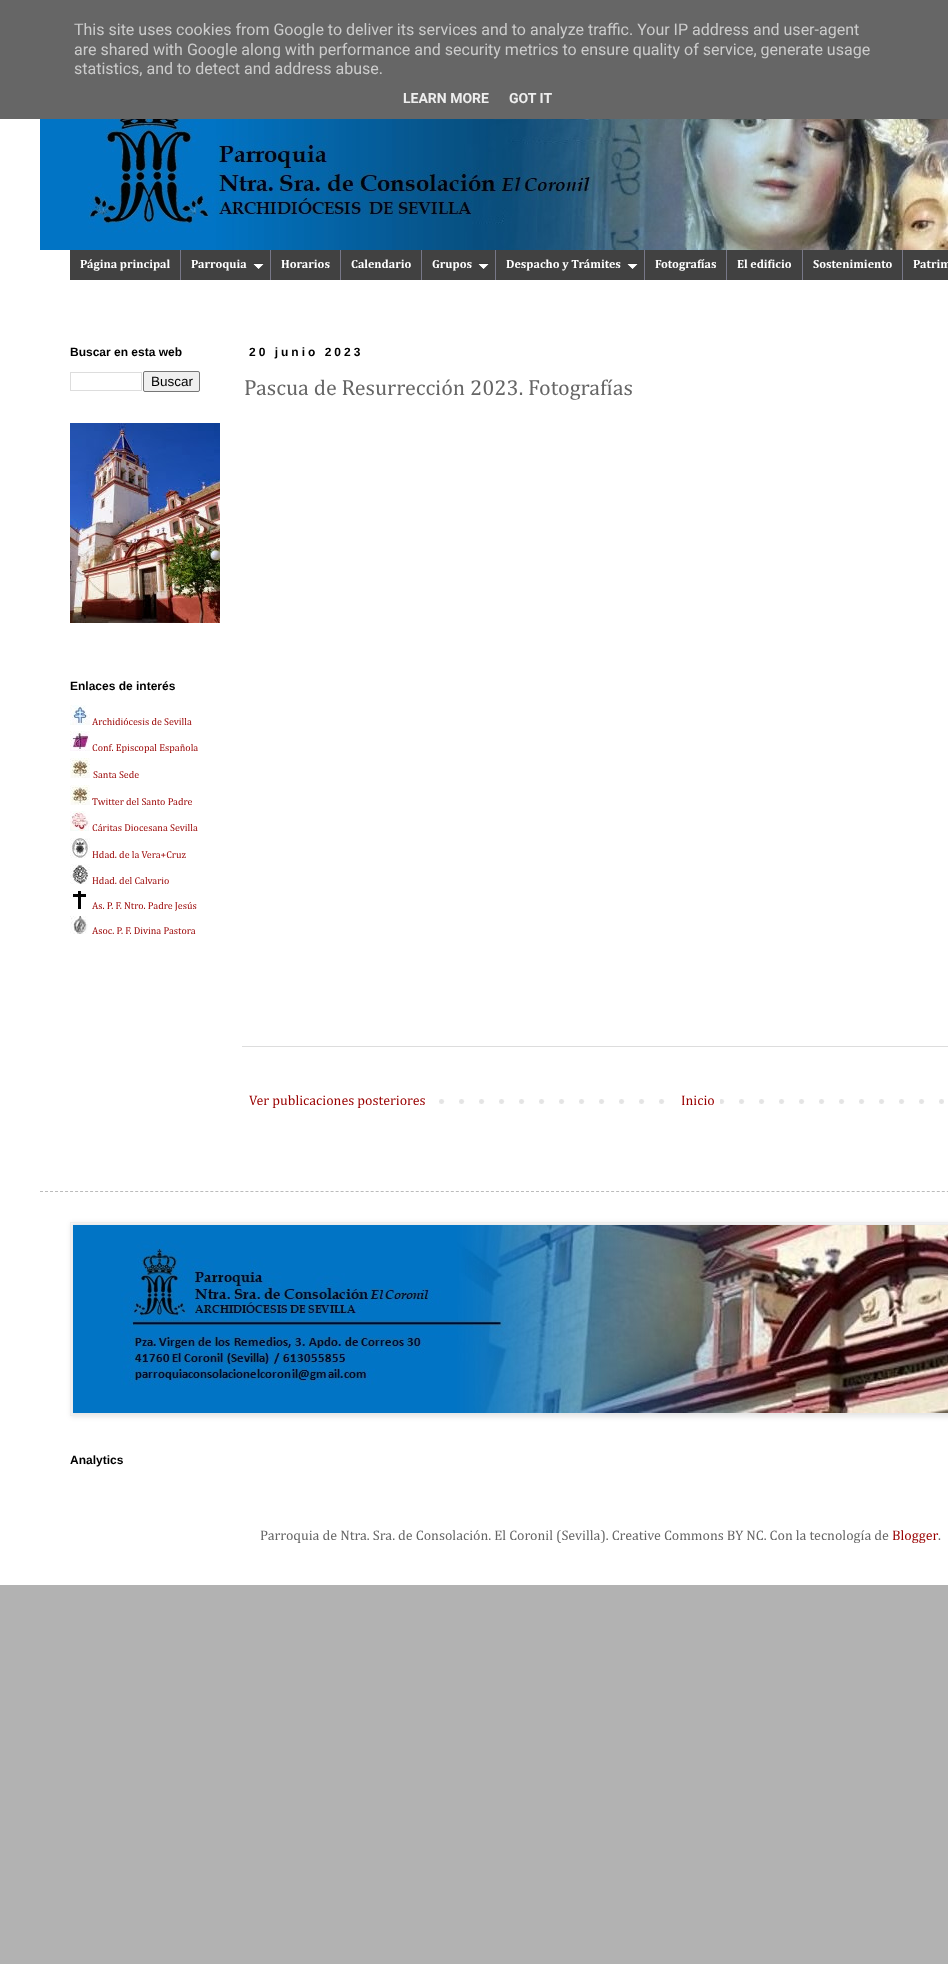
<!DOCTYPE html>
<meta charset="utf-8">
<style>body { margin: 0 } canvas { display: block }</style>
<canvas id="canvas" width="948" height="1964"></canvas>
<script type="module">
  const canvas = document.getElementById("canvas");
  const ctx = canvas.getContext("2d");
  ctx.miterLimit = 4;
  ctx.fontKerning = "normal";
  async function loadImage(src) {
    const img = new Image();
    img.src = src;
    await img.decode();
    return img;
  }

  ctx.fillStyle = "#b2b2b2";
  ctx.fillRect(0, 0, 948, 1964);
  ctx.fillStyle = "#666666";
  ctx.fillRect(0, 0, 948, 119);
  ctx.font = "16px Roboto";
  ctx.fillStyle = "#cccccc";
  ctx.fillText("This site uses cookies from Google to deliver its services and to analyze traffic. Your IP address and user-agent", 74, 35);
  ctx.fillText("are shared with Google along with performance and security metrics to ensure quality of service, generate usage", 74, 55);
  ctx.fillText("statistics, and to detect and address abuse.", 74, 74);
  ctx.font = "bold 14px Roboto";
  ctx.fillStyle = "#eeeeee";
  ctx.fillText("LEARN MORE", 403, 103);
  ctx.fillText("GOT IT", 509, 103);
  ctx.fillStyle = "#ffffff";
  ctx.fillRect(0, 119, 948, 1466);
  ctx.drawImage(await loadImage("img1.png"), 40, 119, 908, 131);
  ctx.fillStyle = "#414141";
  ctx.fillRect(70, 250, 878, 30);
  ctx.fillStyle = "#777788";
  ctx.fillRect(180, 250, 1, 30);
  ctx.font = "bold 12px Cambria";
  ctx.fillStyle = "#ffffff";
  ctx.fillText("Página principal", 80, 268);
  ctx.fillStyle = "#777788";
  ctx.fillRect(270, 250, 1, 30);
  ctx.fillStyle = "#ffffff";
  ctx.fillText("Parroquia", 191, 268);
  ctx.drawImage(await loadImage("img2.png"), 253, 263, 11, 7);
  ctx.fillStyle = "#777788";
  ctx.fillRect(340, 250, 1, 30);
  ctx.fillStyle = "#ffffff";
  ctx.fillText("Horarios", 281, 268);
  ctx.fillStyle = "#777788";
  ctx.fillRect(421, 250, 1, 30);
  ctx.fillStyle = "#ffffff";
  ctx.fillText("Calendario", 351, 268);
  ctx.fillStyle = "#777788";
  ctx.fillRect(495, 250, 1, 30);
  ctx.fillStyle = "#ffffff";
  ctx.fillText("Grupos", 432, 268);
  ctx.drawImage(await loadImage("img2.png"), 478, 263, 11, 7);
  ctx.fillStyle = "#777788";
  ctx.fillRect(644, 250, 1, 30);
  ctx.fillStyle = "#ffffff";
  ctx.fillText("Despacho y Trámites", 506, 268);
  ctx.drawImage(await loadImage("img2.png"), 627, 263, 11, 7);
  ctx.fillStyle = "#777788";
  ctx.fillRect(726, 250, 1, 30);
  ctx.fillStyle = "#ffffff";
  ctx.fillText("Fotografías", 655, 268);
  ctx.fillStyle = "#777788";
  ctx.fillRect(802, 250, 1, 30);
  ctx.fillStyle = "#ffffff";
  ctx.fillText("El edificio", 737, 268);
  ctx.fillStyle = "#777788";
  ctx.fillRect(902, 250, 1, 30);
  ctx.fillStyle = "#ffffff";
  ctx.fillText("Sostenimiento", 813, 268);
  ctx.fillText("Patrim", 913, 268);
  ctx.font = "bold 12px Liberation Sans";
  ctx.fillStyle = "#000000";
  ctx.fillText("Buscar en esta web", 70, 356);
  ctx.strokeStyle = "#dddddd";
  ctx.strokeRect(70.5, 372.5, 71, 18);
  ctx.fillStyle = "#efefef";
  ctx.beginPath();
  ctx.roundRect(143.5, 371.5, 56, 20, 1.5);
  ctx.fill();
  ctx.strokeStyle = "#767676";
  ctx.stroke();
  ctx.font = "13.5px Liberation Sans";
  ctx.fillStyle = "#000000";
  ctx.fillText("Buscar", 151, 386);
  ctx.drawImage(await loadImage("img3.png"), 70, 423, 150, 200);
  ctx.font = "bold 12px Liberation Sans";
  ctx.fillText("Enlaces de interés", 70, 690);
  ctx.drawImage(await loadImage("img4.png"), 70, 705, 20, 20);
  ctx.font = "10px Cambria";
  ctx.fillStyle = "#990000";
  ctx.fillText("Archidiócesis de Sevilla", 92, 725);
  ctx.drawImage(await loadImage("img5.png"), 70, 731, 20, 20);
  ctx.fillText("Conf. Episcopal Española", 92, 751);
  ctx.drawImage(await loadImage("img6.png"), 70, 758, 20, 20);
  ctx.fillText("Santa Sede", 93, 778);
  ctx.drawImage(await loadImage("img6.png"), 70, 785, 20, 20);
  ctx.fillText("Twitter del Santo Padre", 92, 805);
  ctx.drawImage(await loadImage("img7.png"), 70, 811, 20, 20);
  ctx.fillText("Cáritas Diocesana Sevilla", 92, 831);
  ctx.drawImage(await loadImage("img8.png"), 70, 838, 20, 20);
  ctx.fillText("Hdad. de la Vera+Cruz", 92, 858);
  ctx.drawImage(await loadImage("img9.png"), 70, 864, 20, 20);
  ctx.fillText("Hdad. del Calvario", 92, 884);
  ctx.drawImage(await loadImage("img10.png"), 70, 891, 16, 18);
  ctx.fillText("As. P. F. Ntro. Padre Jesús", 92, 909);
  ctx.drawImage(await loadImage("img11.png"), 70, 916, 18, 18);
  ctx.fillText("Asoc. P. F. Divina Pastora", 92, 934);
  ctx.letterSpacing = "3px";
  ctx.font = "bold 12px Liberation Sans";
  ctx.fillStyle = "#000000";
  ctx.fillText("20 junio 2023", 249, 356);
  ctx.letterSpacing = "0px";
  ctx.font = "22px Cambria";
  ctx.fillStyle = "#666666";
  ctx.fillText("Pascua de Resurrección 2023. Fotografías", 244, 395);
  ctx.fillStyle = "#dddddd";
  ctx.fillRect(242, 1046, 706, 1);
  ctx.drawImage(await loadImage("img12.png"), 439, 1099, 505, 5);
  ctx.font = "14px Cambria";
  ctx.fillStyle = "#990000";
  ctx.fillText("Ver publicaciones posteriores", 249, 1105);
  ctx.fillStyle = "#ffffff";
  ctx.fillRect(679, 1099, 41, 5);
  ctx.fillStyle = "#990000";
  ctx.fillText("Inicio", 681, 1105);
  ctx.beginPath();
  ctx.moveTo(40, 1191.5);
  ctx.lineTo(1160, 1191.5);
  ctx.strokeStyle = "#bbbbbb";
  ctx.setLineDash([3, 2.01]);
  ctx.stroke();
  ctx.fillStyle = "rgba(0, 0, 0, 0.1)";
  ctx.filter = "blur(2.5px)";
  ctx.beginPath();
  ctx.rect(71, 1223, 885, 194);
  ctx.fill();
  ctx.filter = "none";
  ctx.strokeStyle = "#eeeeee";
  ctx.setLineDash([]);
  ctx.strokeRect(70.5, 1222.5, 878, 193);
  ctx.drawImage(await loadImage("img13.png"), 73, 1225, 875, 188);
  ctx.font = "bold 12px Liberation Sans";
  ctx.fillStyle = "#000000";
  ctx.fillText("Analytics", 70, 1464);
  ctx.font = "14px Cambria";
  ctx.fillStyle = "#666666";
  ctx.fillText("Parroquia de Ntra. Sra. de Consolación. El Coronil (Sevilla). Creative Commons BY NC. Con la tecnología de", 260, 1540);
  ctx.fillStyle = "#990000";
  ctx.fillText("Blogger", 892, 1540);
  ctx.fillStyle = "#666666";
  ctx.fillText(".", 938, 1540);
</script>
